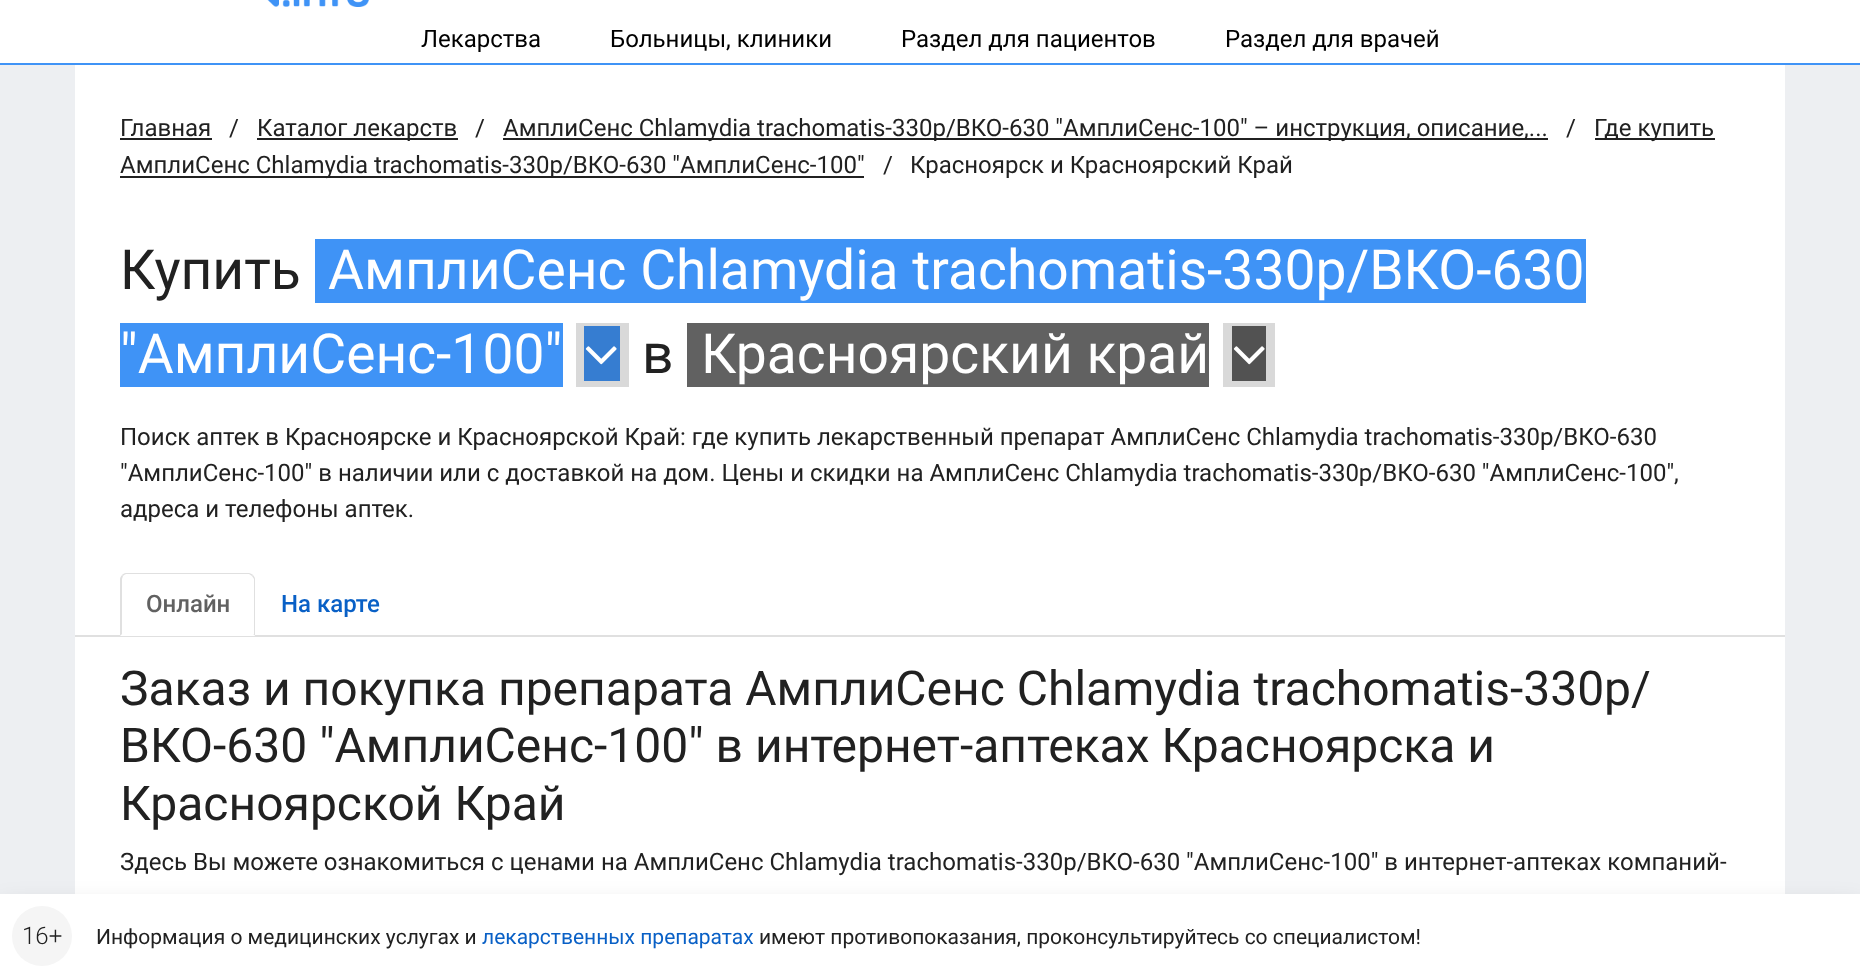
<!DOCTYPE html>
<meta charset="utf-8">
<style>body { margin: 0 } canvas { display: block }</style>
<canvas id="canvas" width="1860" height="978"></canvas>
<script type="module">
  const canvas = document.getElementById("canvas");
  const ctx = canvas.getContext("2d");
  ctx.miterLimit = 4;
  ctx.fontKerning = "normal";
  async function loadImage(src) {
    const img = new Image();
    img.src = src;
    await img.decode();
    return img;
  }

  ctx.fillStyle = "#edeff2";
  ctx.fillRect(0, 0, 1860, 978);
  ctx.fillStyle = "#ffffff";
  ctx.fillRect(0, 0, 1860, 63);
  ctx.drawImage(await loadImage("img1.png"), 267, 0, 102, 7);
  ctx.fillStyle = "#3f93f6";
  ctx.fillRect(0, 63, 1860, 2);
  ctx.font = "24px Roboto";
  ctx.fillStyle = "#000000";
  ctx.fillText("Лекарства", 421, 47);
  ctx.fillText("Больницы, клиники", 610, 47);
  ctx.fillText("Раздел для пациентов", 901, 47);
  ctx.fillText("Раздел для врачей", 1225, 47);
  ctx.fillStyle = "#ffffff";
  ctx.fillRect(75, 65, 1710, 829);
  ctx.fillStyle = "#d9d9d9";
  ctx.fillRect(1223, 323, 52, 64);
  ctx.fillRect(576, 323, 53, 64);
  ctx.fillStyle = "#212121";
  ctx.fillText("Главная", 120, 136);
  ctx.fillRect(120, 138, 92, 2);
  ctx.fillText("/", 229, 136);
  ctx.fillRect(257, 138, 201, 2);
  ctx.fillText("Каталог лекарств", 257, 136);
  ctx.fillText("/", 475, 136);
  ctx.fillRect(503, 138, 1045, 2);
  ctx.fillText("АмплиСенс Chlamydia trachomatis-330p/ВКО-630 \"АмплиСенс-100\" – инструкция, описание,...", 503, 136);
  ctx.fillText("/", 1566, 136);
  ctx.fillRect(1595, 138, 120, 2);
  ctx.fillText("Где купить", 1594, 136);
  ctx.fillRect(120, 176, 744, 2);
  ctx.fillText("АмплиСенс Chlamydia trachomatis-330p/ВКО-630 \"АмплиСенс-100\"", 120, 173);
  ctx.fillText("/", 883, 173);
  ctx.fillText("Красноярск и Красноярский Край", 910, 173);
  ctx.font = "55.2px Roboto";
  ctx.fillText("Купить", 120, 289);
  ctx.fillStyle = "#3f93f6";
  ctx.fillRect(315, 239, 1271, 64);
  ctx.fillStyle = "#ffffff";
  ctx.fillText("АмплиСенс Chlamydia trachomatis-330p/ВКО-630", 328, 289);
  ctx.fillStyle = "#3f93f6";
  ctx.fillRect(120, 323, 443, 64);
  ctx.fillStyle = "#ffffff";
  ctx.fillText("\"АмплиСенс-100\"", 120, 373);
  ctx.fillStyle = "#367dd1";
  ctx.fillRect(584, 326, 36, 55);
  ctx.drawImage(await loadImage("img2.png"), 585, 346, 32, 19);
  ctx.fillStyle = "#212121";
  ctx.fillText("в", 642, 373);
  ctx.fillStyle = "#616161";
  ctx.fillRect(687, 323, 522, 64);
  ctx.fillStyle = "#ffffff";
  ctx.fillText("Красноярский край", 701, 373);
  ctx.fillStyle = "#525252";
  ctx.fillRect(1232, 326, 34, 55);
  ctx.drawImage(await loadImage("img3.png"), 1233, 346, 32, 19);
  ctx.font = "24px Roboto";
  ctx.fillStyle = "#212121";
  ctx.fillText("Поиск аптек в Красноярске и Красноярской Край: где купить лекарственный препарат АмплиСенс Chlamydia trachomatis-330p/ВКО-630", 120, 445);
  ctx.fillText("\"АмплиСенс-100\" в наличии или с доставкой на дом. Цены и скидки на АмплиСенс Chlamydia trachomatis-330p/ВКО-630 \"АмплиСенс-100\",", 120, 481);
  ctx.fillText("адреса и телефоны аптек.", 120, 517);
  ctx.fillStyle = "#e0e0e0";
  ctx.fillRect(75, 635, 1710, 2);
  ctx.fillStyle = "#ffffff";
  ctx.beginPath();
  ctx.roundRect(120, 573, 135, 63, [6, 6, 0, 0]);
  ctx.fill();
  ctx.fillStyle = "#e0e0e0";
  ctx.beginPath();
  ctx.moveTo(126, 573);
  ctx.bezierCurveTo(124, 573, 123, 574, 122, 575);
  ctx.lineTo(123, 576);
  ctx.lineTo(124, 575);
  ctx.lineTo(126, 574);
  ctx.lineTo(249, 574);
  ctx.lineTo(252, 576);
  ctx.lineTo(253, 575);
  ctx.bezierCurveTo(252, 574, 250, 573, 249, 573);
  ctx.closePath();
  ctx.fill();
  ctx.beginPath();
  ctx.moveTo(255, 636);
  ctx.lineTo(255, 579);
  ctx.bezierCurveTo(255, 578, 254, 576, 253, 575);
  ctx.lineTo(252, 576);
  ctx.lineTo(254, 579);
  ctx.lineTo(254, 634);
  ctx.lineTo(253, 634);
  ctx.closePath();
  ctx.fill();
  ctx.fillStyle = "#ffffff";
  ctx.beginPath();
  ctx.moveTo(255, 636);
  ctx.lineTo(253, 634);
  ctx.lineTo(122, 634);
  ctx.lineTo(120, 636);
  ctx.closePath();
  ctx.fill();
  ctx.fillStyle = "#e0e0e0";
  ctx.beginPath();
  ctx.moveTo(120, 636);
  ctx.lineTo(122, 634);
  ctx.lineTo(122, 579);
  ctx.lineTo(123, 576);
  ctx.lineTo(122, 575);
  ctx.bezierCurveTo(121, 576, 120, 578, 120, 579);
  ctx.closePath();
  ctx.fill();
  ctx.font = "500 24px Roboto";
  ctx.fillStyle = "#616161";
  ctx.fillText("Онлайн", 146, 612);
  ctx.fillStyle = "#0960c6";
  ctx.fillText("На карте", 281, 612);
  ctx.font = "48px Roboto";
  ctx.fillStyle = "#212121";
  ctx.fillText("Заказ и покупка препарата АмплиСенс Chlamydia trachomatis-330p/", 120, 705);
  ctx.fillText("ВКО-630 \"АмплиСенс-100\" в интернет-аптеках Красноярска и", 120, 762);
  ctx.fillText("Красноярской Край", 120, 820);
  ctx.font = "24px Roboto";
  ctx.fillText("Здесь Вы можете ознакомиться с ценами на АмплиСенс Chlamydia trachomatis-330p/ВКО-630 \"АмплиСенс-100\" в интернет-аптеках компаний-", 120, 870);
  ctx.fillStyle = "rgba(0, 0, 0, 0.15)";
  ctx.filter = "blur(12px)";
  ctx.beginPath();
  ctx.rect(0, 906, 1860, 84);
  ctx.fill();
  ctx.filter = "none";
  ctx.fillStyle = "#ffffff";
  ctx.fillRect(0, 894, 1860, 84);
  ctx.fillStyle = "#f5f5f5";
  ctx.beginPath();
  ctx.arc(42, 936, 30, 0, Math.PI * 2);
  ctx.fill();
  ctx.font = "300 24px Roboto";
  ctx.fillStyle = "#212121";
  ctx.fillText("16+", 22, 944);
  ctx.font = "21px Roboto";
  ctx.fillText("Информация о медицинских услугах и", 96, 944);
  ctx.fillStyle = "#0960c6";
  ctx.fillText("лекарственных препаратах", 482, 944);
  ctx.fillStyle = "#212121";
  ctx.fillText("имеют противопоказания, проконсультируйтесь со специалистом!", 759, 944);
</script>
